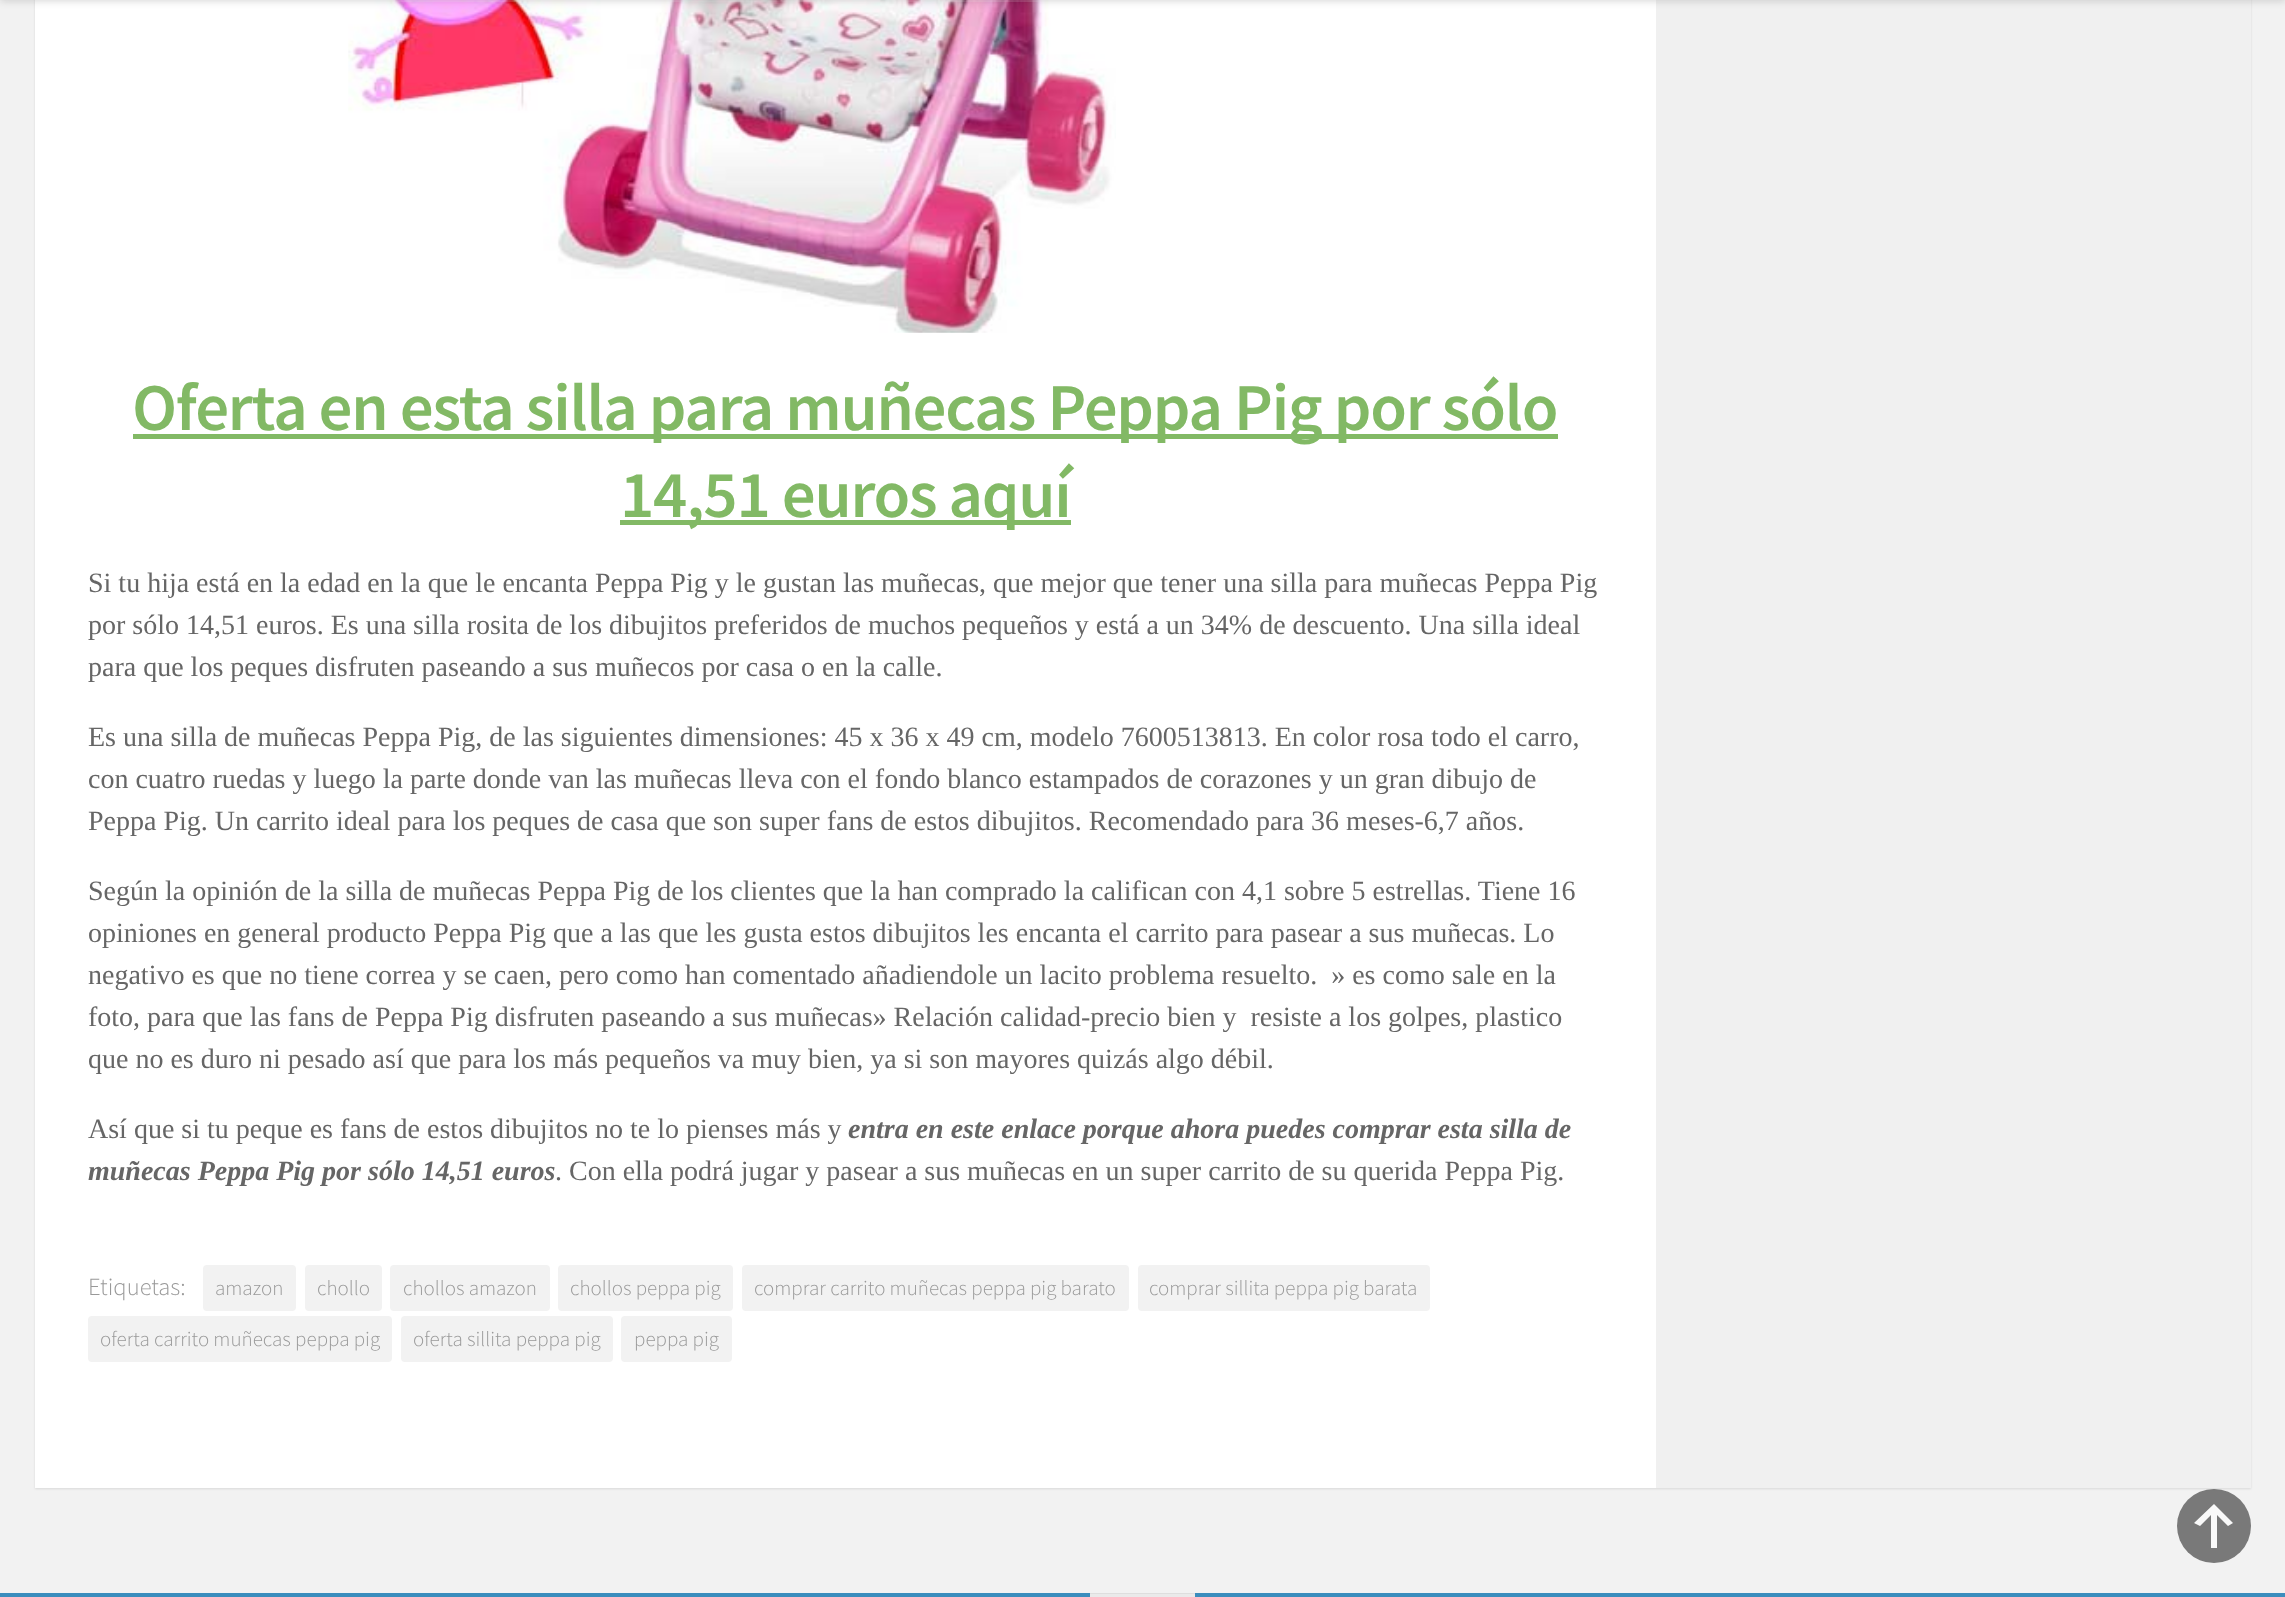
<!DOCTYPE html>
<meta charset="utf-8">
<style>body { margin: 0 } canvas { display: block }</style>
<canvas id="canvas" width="2285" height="1597"></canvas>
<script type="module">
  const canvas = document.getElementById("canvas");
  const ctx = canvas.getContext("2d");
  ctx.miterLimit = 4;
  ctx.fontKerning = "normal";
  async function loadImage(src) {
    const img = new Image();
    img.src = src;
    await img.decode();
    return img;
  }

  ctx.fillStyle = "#f2f2f2";
  ctx.fillRect(0, 0, 2285, 1597);
  ctx.fillStyle = "rgba(0, 0, 0, 0.1)";
  ctx.filter = "blur(1px)";
  ctx.beginPath();
  ctx.rect(35, -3, 2216, 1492);
  ctx.fill();
  ctx.filter = "none";
  ctx.fillStyle = "#ffffff";
  ctx.fillRect(35, 0, 1621, 1488);
  ctx.drawImage(await loadImage("img1.png"), 348, 0, 768, 333);
  ctx.fillStyle = "#f0f0f0";
  ctx.fillRect(1656, 0, 595, 1488);
  ctx.fillStyle = "rgba(255, 255, 255, 0.15)";
  ctx.beginPath();
  ctx.moveTo(0, 0);
  ctx.lineTo(0, 2);
  ctx.lineTo(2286, 2);
  ctx.lineTo(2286, -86);
  ctx.lineTo(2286, 0);
  ctx.closePath();
  ctx.fill();
  ctx.fillStyle = "rgba(0, 0, 0, 0.2)";
  ctx.filter = "blur(4.5px)";
  ctx.beginPath();
  ctx.rect(0, -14, 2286, 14);
  ctx.fill();
  ctx.filter = "none";
  ctx.fillStyle = "#82b965";
  ctx.fillRect(133, 434, 1425, 5);
  ctx.letterSpacing = "-1.22px";
  ctx.font = "600 66.9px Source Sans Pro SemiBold";
  ctx.fillText("Oferta en esta silla para muñecas Peppa Pig por sólo", 132, 430);
  ctx.fillRect(620, 520, 451, 5);
  ctx.fillText("14,51 euros aquí", 620, 517);
  ctx.letterSpacing = "0px";
  ctx.font = "28px Liberation Serif";
  ctx.fillStyle = "#666666";
  ctx.fillText("Si tu hija está en la edad en la que le encanta Peppa Pig y le gustan las muñecas, que mejor que tener una silla para muñecas Peppa Pig", 88, 592);
  ctx.fillText("por sólo 14,51 euros. Es una silla rosita de los dibujitos preferidos de muchos pequeños y está a un 34% de descuento. Una silla ideal", 88, 634);
  ctx.fillText("para que los peques disfruten paseando a sus muñecos por casa o en la calle.", 88, 676);
  ctx.fillText("Es una silla de muñecas Peppa Pig, de las siguientes dimensiones: 45 x 36 x 49 cm, modelo 7600513813. En color rosa todo el carro,", 88, 746);
  ctx.fillText("con cuatro ruedas y luego la parte donde van las muñecas lleva con el fondo blanco estampados de corazones y un gran dibujo de", 88, 788);
  ctx.fillText("Peppa Pig. Un carrito ideal para los peques de casa que son super fans de estos dibujitos. Recomendado para 36 meses-6,7 años.", 88, 830);
  ctx.fillText("Según la opinión de la silla de muñecas Peppa Pig de los clientes que la han comprado la califican con 4,1 sobre 5 estrellas. Tiene 16", 88, 900);
  ctx.fillText("opiniones en general producto Peppa Pig que a las que les gusta estos dibujitos les encanta el carrito para pasear a sus muñecas. Lo", 88, 942);
  ctx.fillText("negativo es que no tiene correa y se caen, pero como han comentado añadiendole un lacito problema resuelto.  » es como sale en la", 88, 984);
  ctx.fillText("foto, para que las fans de Peppa Pig disfruten paseando a sus muñecas» Relación calidad-precio bien y  resiste a los golpes, plastico", 88, 1026);
  ctx.fillText("que no es duro ni pesado así que para los más pequeños va muy bien, ya si son mayores quizás algo débil.", 88, 1068);
  ctx.fillText("Así que si tu peque es fans de estos dibujitos no te lo pienses más y", 88, 1138);
  ctx.font = "italic bold 28px Liberation Serif";
  ctx.fillText("entra en este enlace porque ahora puedes comprar esta silla de", 848, 1138);
  ctx.fillText("muñecas Peppa Pig por sólo 14,51 euros", 88, 1180);
  ctx.font = "28px Liberation Serif";
  ctx.fillText(". Con ella podrá jugar y pasear a sus muñecas en un super carrito de su querida Peppa Pig.", 555, 1180);
  ctx.font = "300 24.5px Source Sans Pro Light";
  ctx.fillStyle = "#999999";
  ctx.fillText("Etiquetas:", 88, 1295);
  ctx.fillStyle = "#f2f2f2";
  ctx.beginPath();
  ctx.roundRect(203, 1265, 93, 46, 4);
  ctx.fill();
  ctx.font = "300 21px Source Sans Pro Light";
  ctx.fillStyle = "#999999";
  ctx.fillText("amazon", 215, 1295);
  ctx.fillStyle = "#f2f2f2";
  ctx.beginPath();
  ctx.roundRect(305, 1265, 77, 46, 4);
  ctx.fill();
  ctx.fillStyle = "#999999";
  ctx.fillText("chollo", 317, 1295);
  ctx.fillStyle = "#f2f2f2";
  ctx.beginPath();
  ctx.roundRect(390, 1265, 160, 46, 4);
  ctx.fill();
  ctx.fillStyle = "#999999";
  ctx.fillText("chollos amazon", 403, 1295);
  ctx.fillStyle = "#f2f2f2";
  ctx.beginPath();
  ctx.roundRect(558, 1265, 175, 46, 4);
  ctx.fill();
  ctx.fillStyle = "#999999";
  ctx.fillText("chollos peppa pig", 570, 1295);
  ctx.fillStyle = "#f2f2f2";
  ctx.beginPath();
  ctx.roundRect(742, 1265, 387, 46, 4);
  ctx.fill();
  ctx.fillStyle = "#999999";
  ctx.fillText("comprar carrito muñecas peppa pig barato", 754, 1295);
  ctx.fillStyle = "#f2f2f2";
  ctx.beginPath();
  ctx.roundRect(1138, 1265, 292, 46, 4);
  ctx.fill();
  ctx.fillStyle = "#999999";
  ctx.fillText("comprar sillita peppa pig barata", 1149, 1295);
  ctx.fillStyle = "#f2f2f2";
  ctx.beginPath();
  ctx.roundRect(88, 1316, 304, 46, 4);
  ctx.fill();
  ctx.fillStyle = "#999999";
  ctx.fillText("oferta carrito muñecas peppa pig", 100, 1346);
  ctx.fillStyle = "#f2f2f2";
  ctx.beginPath();
  ctx.roundRect(401, 1316, 212, 46, 4);
  ctx.fill();
  ctx.fillStyle = "#999999";
  ctx.fillText("oferta sillita peppa pig", 413, 1346);
  ctx.fillStyle = "#f2f2f2";
  ctx.beginPath();
  ctx.roundRect(621, 1316, 111, 46, 4);
  ctx.fill();
  ctx.fillStyle = "#999999";
  ctx.fillText("peppa pig", 634, 1346);
  ctx.fillStyle = "#3b8dbd";
  ctx.fillRect(0, 1593, 2285, 4);
  ctx.fillStyle = "#eaeaea";
  ctx.fillRect(1090, 1594, 105, 3);
  ctx.fillStyle = "#dedede";
  ctx.fillRect(1090, 1593, 105, 1);
  ctx.fillStyle = "rgba(0, 0, 0, 0.5)";
  ctx.beginPath();
  ctx.arc(2214, 1526, 37, 0, Math.PI * 2);
  ctx.fill();
  ctx.fillStyle = "#f9f9f9";
  ctx.beginPath();
  ctx.moveTo(2217, 1548);
  ctx.lineTo(2211, 1548);
  ctx.lineTo(2211, 1515);
  ctx.lineTo(2200, 1526);
  ctx.lineTo(2194, 1523);
  ctx.lineTo(2214, 1504);
  ctx.lineTo(2233, 1523);
  ctx.lineTo(2228, 1526);
  ctx.lineTo(2217, 1515);
  ctx.closePath();
  ctx.fill();
</script>
